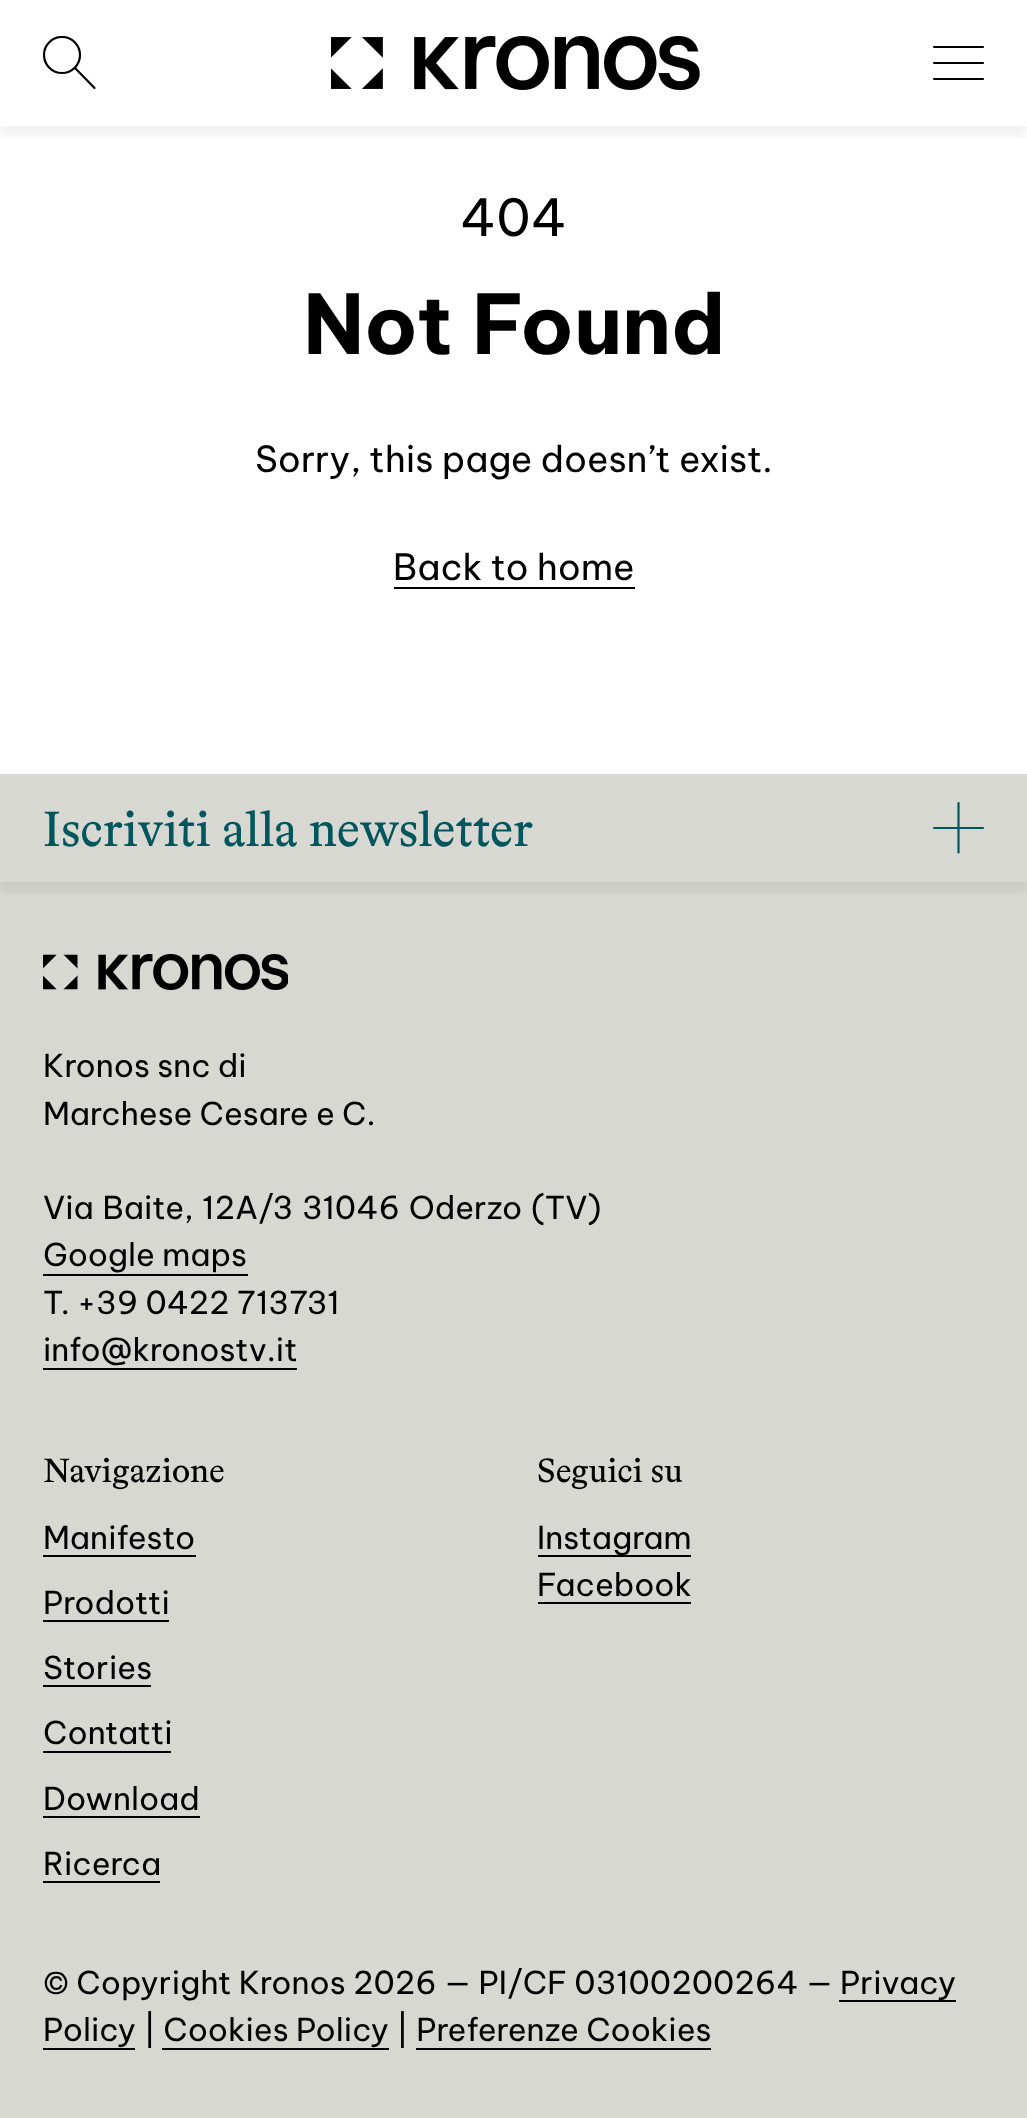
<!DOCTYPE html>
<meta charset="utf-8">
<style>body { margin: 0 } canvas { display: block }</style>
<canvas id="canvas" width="1027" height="2118"></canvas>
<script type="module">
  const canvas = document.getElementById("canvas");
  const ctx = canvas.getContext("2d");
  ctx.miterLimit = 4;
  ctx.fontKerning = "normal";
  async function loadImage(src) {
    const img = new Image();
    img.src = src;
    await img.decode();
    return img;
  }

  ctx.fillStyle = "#ffffff";
  ctx.fillRect(0, 0, 1027, 2118);
  ctx.save();
  ctx.beginPath();
  ctx.rect(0, 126, 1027, 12);
  ctx.clip();
  ctx.fillStyle = "rgba(0, 0, 0, 0.05)";
  ctx.filter = "blur(5.5px)";
  ctx.beginPath();
  ctx.rect(0, 11, 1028, 126);
  ctx.fill();
  ctx.filter = "none";
  ctx.restore();
  ctx.save();
  ctx.beginPath();
  ctx.rect(43, 36, 54, 54);
  ctx.clip();
  ctx.beginPath();
  ctx.arc(62, 55, 18, 0, Math.PI * 2);
  ctx.strokeStyle = "#000000";
  ctx.lineWidth = 2.2;
  ctx.stroke();
  ctx.restore();
  ctx.beginPath();
  ctx.moveTo(75.5, 68.5);
  ctx.lineTo(94.5, 88);
  ctx.strokeStyle = "#000000";
  ctx.lineWidth = 2.2;
  ctx.lineCap = "round";
  ctx.stroke();
  ctx.drawImage(await loadImage("img1.png"), 331, 36, 369, 54);
  ctx.beginPath();
  ctx.moveTo(934, 47);
  ctx.lineTo(983, 47);
  ctx.moveTo(934, 79);
  ctx.lineTo(983, 79);
  ctx.moveTo(934, 63);
  ctx.lineTo(983, 63);
  ctx.stroke();
  ctx.font = "51px Be Vietnam Pro";
  ctx.fillStyle = "#000000";
  ctx.fillText("404", 460, 236);
  ctx.font = "bold 82px Be Vietnam Pro";
  ctx.fillText("Not Found", 303, 354);
  ctx.font = "36px Be Vietnam Pro";
  ctx.fillText("Sorry, this page doesn’t exist.", 255, 472);
  ctx.fillText("Back to home", 393, 580);
  ctx.fillRect(394, 587, 241, 2);
  ctx.fillStyle = "#d7d8d2";
  ctx.fillRect(0, 774, 1027, 1344);
  ctx.save();
  ctx.beginPath();
  ctx.rect(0, 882, 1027, 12);
  ctx.clip();
  ctx.fillStyle = "rgba(0, 0, 0, 0.05)";
  ctx.filter = "blur(5.5px)";
  ctx.beginPath();
  ctx.rect(0, 785, 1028, 108);
  ctx.fill();
  ctx.filter = "none";
  ctx.restore();
  ctx.font = "49.5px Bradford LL";
  ctx.fillStyle = "#00565c";
  ctx.fillText("Iscriviti alla newsletter", 43, 846);
  ctx.beginPath();
  ctx.moveTo(934, 828);
  ctx.lineTo(983, 828);
  ctx.moveTo(958.5, 803);
  ctx.lineTo(958.5, 852.5);
  ctx.strokeStyle = "#00565c";
  ctx.lineJoin = "round";
  ctx.stroke();
  ctx.drawImage(await loadImage("img2.png"), 43, 954, 245, 36);
  ctx.font = "31.5px Be Vietnam Pro";
  ctx.fillStyle = "#000000";
  ctx.fillText("Kronos snc di", 43, 1077);
  ctx.fillText("Marchese Cesare e C.", 43, 1125);
  ctx.wordSpacing = "1.5px";
  ctx.fillText("Via Baite, 12A/3 31046 Oderzo (TV)", 43, 1219);
  ctx.wordSpacing = "0px";
  ctx.fillText("Google maps", 43, 1266);
  ctx.fillRect(43, 1274, 205, 2);
  ctx.fillText("T. +39 0422 713731", 43, 1314);
  ctx.fillText("info@kronostv.it", 43, 1361);
  ctx.fillRect(43, 1368, 254, 2);
  ctx.font = "33.75px Bradford LL";
  ctx.fillText("Navigazione", 43, 1482);
  ctx.font = "31.5px Be Vietnam Pro";
  ctx.fillText("Manifesto", 43, 1549);
  ctx.fillRect(43, 1555, 153, 2);
  ctx.fillText("Prodotti", 43, 1614);
  ctx.fillRect(43, 1620, 126, 2);
  ctx.fillText("Stories", 43, 1679);
  ctx.fillRect(43, 1685, 108, 2);
  ctx.fillText("Contatti", 43, 1744);
  ctx.fillRect(43, 1751, 128, 2);
  ctx.fillText("Download", 43, 1810);
  ctx.fillRect(43, 1816, 157, 2);
  ctx.fillText("Ricerca", 43, 1875);
  ctx.fillRect(43, 1881, 117, 2);
  ctx.font = "33.75px Bradford LL";
  ctx.fillText("Seguici su", 537, 1482);
  ctx.fillRect(538, 1555, 153, 2);
  ctx.font = "31.5px Be Vietnam Pro";
  ctx.fillText("Instagram", 537, 1549);
  ctx.fillText("Facebook", 537, 1596);
  ctx.fillRect(538, 1602, 153, 2);
  ctx.fillText("© Copyright Kronos 2026 — PI/CF 03100200264 —", 43, 1994);
  ctx.fillRect(839, 2000, 117, 2);
  ctx.fillText("Privacy", 840, 1994);
  ctx.fillText("Policy | Cookies Policy | Preferenze Cookies", 43, 2041);
  ctx.fillRect(43, 2048, 92, 2);
  ctx.fillRect(162, 2048, 227, 2);
  ctx.fillRect(416, 2048, 295, 2);
</script>
